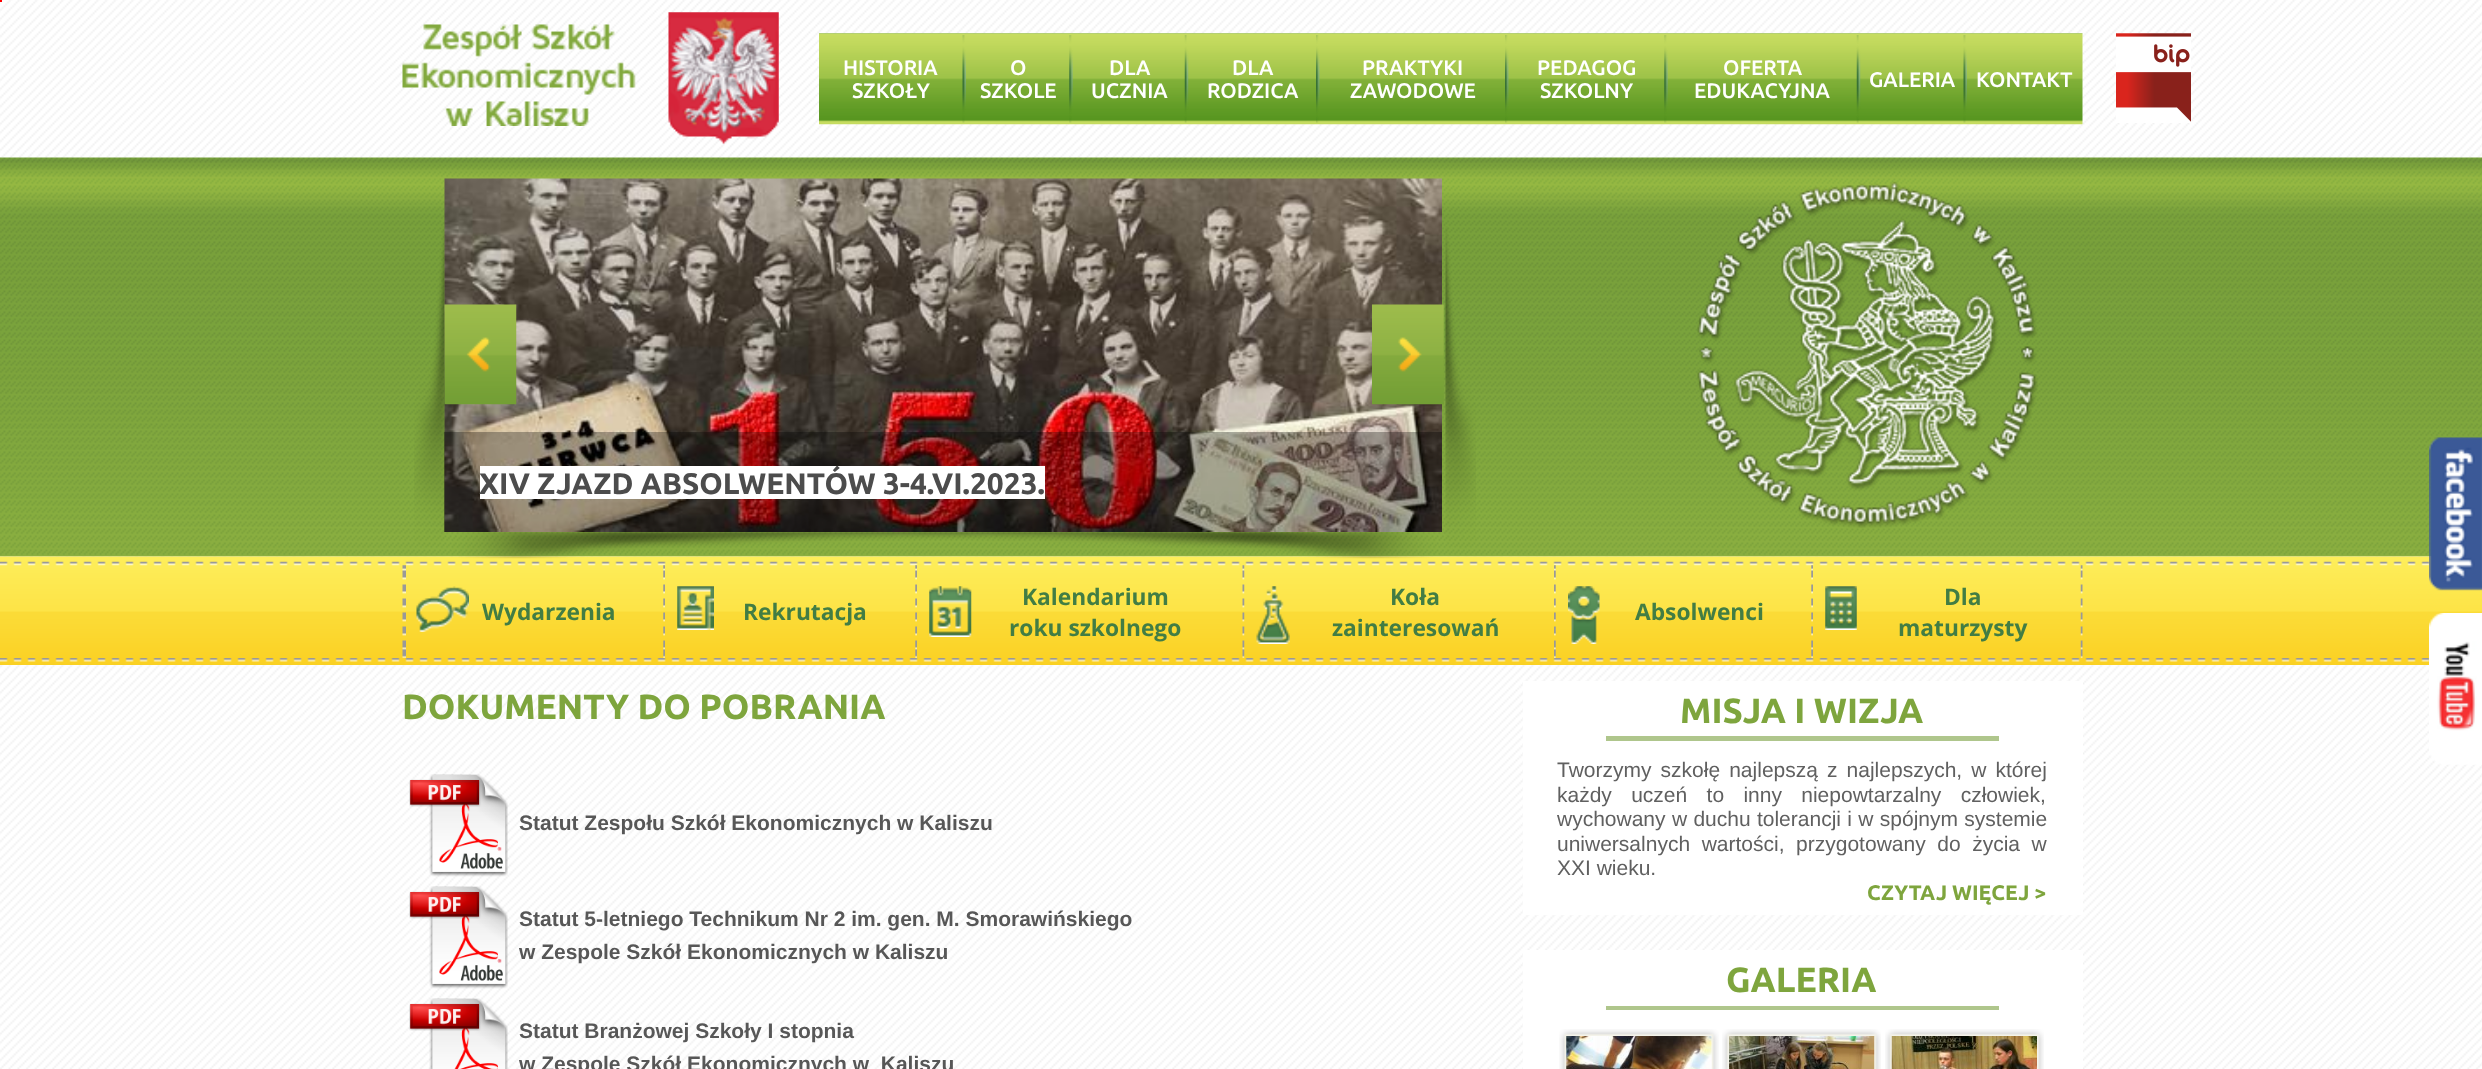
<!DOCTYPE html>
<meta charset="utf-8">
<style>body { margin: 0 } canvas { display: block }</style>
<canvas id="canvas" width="2482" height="1069"></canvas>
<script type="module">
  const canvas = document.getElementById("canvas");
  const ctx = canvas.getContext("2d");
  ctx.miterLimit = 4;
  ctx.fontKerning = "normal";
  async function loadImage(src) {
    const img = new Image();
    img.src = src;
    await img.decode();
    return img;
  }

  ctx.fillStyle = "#ffffff";
  ctx.fillRect(0, 0, 2482, 1069);
  ctx.drawImage(await loadImage("img1.png"), 0, 0, 2482, 1069);
  ctx.fillStyle = "#ff0000";
  ctx.fillRect(0, 0, 2, 2);
  ctx.drawImage(await loadImage("img2.png"), 402, 24, 234, 102);
  ctx.drawImage(await loadImage("img3.png"), 668, 12, 111, 132);
  ctx.drawImage(await loadImage("img4.png"), 819, 33, 1264, 92);
  ctx.font = "500 21px Ubuntu";
  ctx.fillStyle = "#ffffff";
  ctx.fillText("HISTORIA", 843, 75);
  ctx.fillText("SZKOŁY", 852, 98);
  ctx.drawImage(await loadImage("img5.png"), 962, 35, 4, 88);
  ctx.fillText("O", 1010, 75);
  ctx.fillText("SZKOLE", 980, 98);
  ctx.drawImage(await loadImage("img6.png"), 1069, 35, 4, 88);
  ctx.fillText("DLA", 1109, 75);
  ctx.fillText("UCZNIA", 1091, 98);
  ctx.drawImage(await loadImage("img7.png"), 1184, 35, 5, 88);
  ctx.fillText("DLA", 1232, 75);
  ctx.fillText("RODZICA", 1207, 98);
  ctx.drawImage(await loadImage("img8.png"), 1316, 35, 4, 88);
  ctx.fillText("PRAKTYKI", 1362, 75);
  ctx.fillText("ZAWODOWE", 1350, 98);
  ctx.drawImage(await loadImage("img8.png"), 1505, 35, 4, 88);
  ctx.fillText("PEDAGOG", 1537, 75);
  ctx.fillText("SZKOLNY", 1540, 98);
  ctx.drawImage(await loadImage("img6.png"), 1664, 35, 4, 88);
  ctx.fillText("OFERTA", 1723, 75);
  ctx.fillText("EDUKACYJNA", 1694, 98);
  ctx.drawImage(await loadImage("img9.png"), 1856, 35, 5, 88);
  ctx.fillText("GALERIA", 1869, 87);
  ctx.drawImage(await loadImage("img5.png"), 1963, 35, 4, 88);
  ctx.fillText("KONTAKT", 1976, 87);
  ctx.drawImage(await loadImage("img10.png"), 2116, 33, 75, 90);
  ctx.drawImage(await loadImage("img11.png"), 0, 157, 2482, 400);
  ctx.drawImage(await loadImage("img18.png"), 0, 556, 2482, 109);
  ctx.drawImage(await loadImage("img12.png"), 414, 226, 1062, 333);
  ctx.drawImage(await loadImage("img15.png"), 444, 178, 998, 354);
  ctx.drawImage(await loadImage("img13.png"), 444, 304, 73, 101);
  ctx.drawImage(await loadImage("img14.png"), 1372, 304, 72, 101);
  ctx.fillStyle = "rgba(0, 0, 0, 0.3)";
  ctx.fillRect(444, 432, 998, 100);
  ctx.fillStyle = "#ffffff";
  ctx.fillRect(480, 466, 565, 33);
  ctx.font = "bold 29.75px Ubuntu";
  ctx.fillStyle = "#4c4c4c";
  ctx.fillText("XIV ZJAZD ABSOLWENTÓW 3-4.VI.2023.", 479, 494);
  ctx.drawImage(await loadImage("img16.png"), 1697, 181, 341, 347);
  ctx.drawImage(await loadImage("img19.png"), 0, 561, 2430, 5);
  ctx.drawImage(await loadImage("img17.png"), 2429, 437, 53, 154);
  ctx.drawImage(await loadImage("img20.png"), 402, 565, 4, 93);
  ctx.drawImage(await loadImage("img21.png"), 2080, 565, 3, 93);
  ctx.drawImage(await loadImage("img22.png"), 416, 586, 53, 46);
  ctx.font = "bold 22.75px Open Sans";
  ctx.fillStyle = "#427d44";
  ctx.fillText("Wydarzenia", 482, 620);
  ctx.drawImage(await loadImage("img23.png"), 663, 565, 2, 93);
  ctx.drawImage(await loadImage("img24.png"), 677, 586, 37, 44);
  ctx.fillText("Rekrutacja", 743, 620);
  ctx.drawImage(await loadImage("img23.png"), 915, 565, 2, 93);
  ctx.drawImage(await loadImage("img25.png"), 929, 586, 43, 51);
  ctx.fillText("Kalendarium", 1022, 605);
  ctx.fillText("roku szkolnego", 1009, 636);
  ctx.drawImage(await loadImage("img26.png"), 1242, 565, 3, 93);
  ctx.drawImage(await loadImage("img27.png"), 1256, 586, 34, 58);
  ctx.fillText("Koła", 1390, 605);
  ctx.fillText("zainteresowań", 1332, 636);
  ctx.drawImage(await loadImage("img28.png"), 1554, 565, 2, 93);
  ctx.drawImage(await loadImage("img29.png"), 1568, 586, 32, 58);
  ctx.fillText("Absolwenci", 1635, 620);
  ctx.drawImage(await loadImage("img23.png"), 1811, 565, 2, 93);
  ctx.drawImage(await loadImage("img30.png"), 1825, 586, 32, 44);
  ctx.fillText("Dla", 1944, 605);
  ctx.fillText("maturzysty", 1898, 636);
  ctx.drawImage(await loadImage("img31.png"), 0, 658, 2429, 4);
  ctx.drawImage(await loadImage("img32.png"), 2429, 613, 53, 152);
  ctx.font = "bold 35px Ubuntu";
  ctx.fillStyle = "#7ea53d";
  ctx.fillText("DOKUMENTY DO POBRANIA", 402, 719);
  ctx.drawImage(await loadImage("img33.png"), 409, 774, 99, 103);
  ctx.font = "bold 21px Liberation Sans";
  ctx.fillStyle = "#575757";
  ctx.fillText("Statut Zespołu Szkół Ekonomicznych w Kaliszu", 519, 830);
  ctx.drawImage(await loadImage("img34.png"), 409, 886, 99, 103);
  ctx.fillText("Statut 5-letniego Technikum Nr 2 im. gen. M. Smorawińskiego", 519, 926);
  ctx.fillText("w Zespole Szkół Ekonomicznych w Kaliszu", 519, 959);
  ctx.drawImage(await loadImage("img35.png"), 409, 998, 99, 71);
  ctx.fillText("Statut Branżowej Szkoły I stopnia", 519, 1038);
  ctx.fillText("w Zespole Szkół Ekonomicznych w  Kaliszu", 519, 1071);
  ctx.fillStyle = "#ffffff";
  ctx.fillRect(1523, 681, 560, 234);
  ctx.fillStyle = "#afc68c";
  ctx.fillRect(1606, 736, 393, 5);
  ctx.font = "bold 35px Ubuntu";
  ctx.fillStyle = "#7ea53d";
  ctx.fillText("MISJA I WIZJA", 1680, 723);
  ctx.wordSpacing = "3.25px";
  ctx.font = "21px Liberation Sans";
  ctx.fillStyle = "#606060";
  ctx.fillText("Tworzymy szkołę najlepszą z najlepszych, w której", 1557, 777);
  ctx.wordSpacing = "13.5px";
  ctx.fillText("każdy uczeń to inny niepowtarzalny człowiek,", 1557, 802);
  ctx.wordSpacing = "0.5px";
  ctx.fillText("wychowany w duchu tolerancji i w spójnym systemie", 1557, 826);
  ctx.wordSpacing = "5.75px";
  ctx.fillText("uniwersalnych wartości, przygotowany do życia w", 1557, 851);
  ctx.wordSpacing = "0px";
  ctx.fillText("XXI wieku.", 1557, 875);
  ctx.font = "bold 21px Ubuntu";
  ctx.fillStyle = "#7ea53d";
  ctx.fillText("CZYTAJ WIĘCEJ >", 1867, 900);
  ctx.fillStyle = "#ffffff";
  ctx.fillRect(1523, 950, 560, 119);
  ctx.fillStyle = "#afc68c";
  ctx.fillRect(1606, 1006, 393, 4);
  ctx.font = "bold 35px Ubuntu";
  ctx.fillStyle = "#7ea53d";
  ctx.fillText("GALERIA", 1726, 992);
  ctx.drawImage(await loadImage("img36.png"), 1559, 1029, 160, 40);
  ctx.drawImage(await loadImage("img37.png"), 1566, 1036, 146, 33);
  ctx.drawImage(await loadImage("img38.png"), 1722, 1029, 159, 40);
  ctx.drawImage(await loadImage("img39.png"), 1729, 1036, 146, 33);
  ctx.drawImage(await loadImage("img40.png"), 1885, 1029, 159, 40);
  ctx.drawImage(await loadImage("img41.png"), 1891, 1036, 146, 33);
</script>
